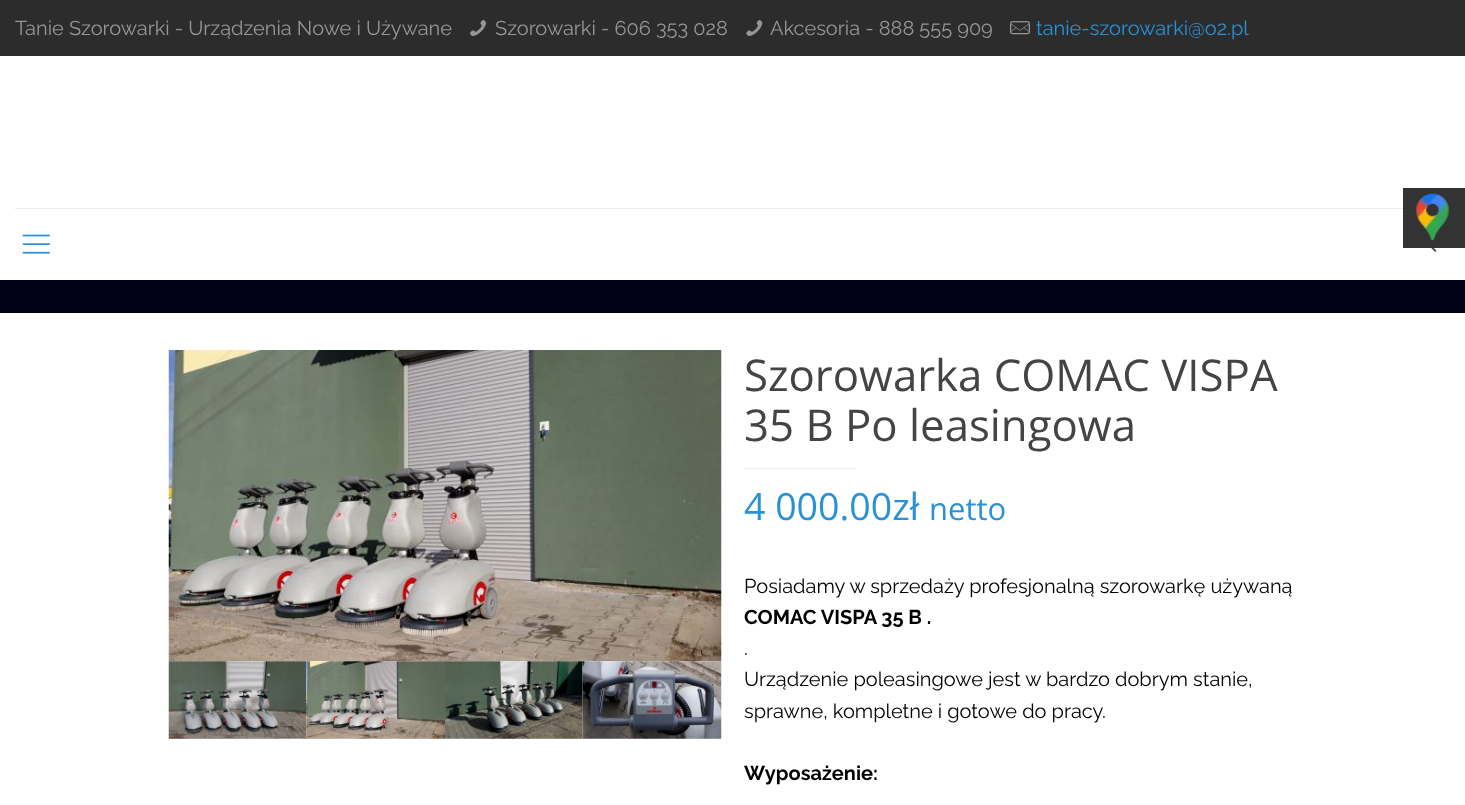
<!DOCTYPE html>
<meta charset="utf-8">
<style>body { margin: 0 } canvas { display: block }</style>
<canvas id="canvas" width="1465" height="805"></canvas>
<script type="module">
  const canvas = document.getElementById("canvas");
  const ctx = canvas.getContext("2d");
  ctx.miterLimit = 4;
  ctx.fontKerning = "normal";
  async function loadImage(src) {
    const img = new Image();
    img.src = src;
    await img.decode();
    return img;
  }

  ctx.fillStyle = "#ffffff";
  ctx.fillRect(0, 0, 1465, 805);
  ctx.fillStyle = "#000119";
  ctx.fillRect(0, 280, 1465, 33);
  ctx.fillStyle = "#2c2c2c";
  ctx.fillRect(0, 0, 1465, 56);
  ctx.font = "20px Raleway";
  ctx.fillStyle = "#969696";
  ctx.fillText("Tanie Szorowarki - Urządzenia Nowe i Używane", 15, 35);
  ctx.drawImage(await loadImage("img1.png"), 470, 20, 16, 16);
  ctx.fillText("Szorowarki - 606 353 028", 495, 35);
  ctx.drawImage(await loadImage("img2.png"), 746, 20, 17, 16);
  ctx.fillText("Akcesoria - 888 555 909", 770, 35);
  ctx.drawImage(await loadImage("img3.png"), 1010, 21, 20, 14);
  ctx.fillStyle = "#2991d6";
  ctx.fillText("tanie-szorowarki@o2.pl", 1036, 35);
  ctx.fillStyle = "#ebebeb";
  ctx.fillRect(15, 208, 1388, 1);
  ctx.drawImage(await loadImage("img4.png"), 22, 234, 28, 20);
  ctx.drawImage(await loadImage("img5.png"), 1431, 248, 6, 4);
  ctx.drawImage(await loadImage("img6.png"), 168, 350, 554, 312);
  ctx.drawImage(await loadImage("img7.png"), 168, 661, 139, 78);
  ctx.drawImage(await loadImage("img8.png"), 306, 661, 139, 78);
  ctx.drawImage(await loadImage("img9.png"), 445, 661, 138, 78);
  ctx.drawImage(await loadImage("img10.png"), 582, 661, 140, 78);
  ctx.font = "43.75px Open Sans";
  ctx.fillStyle = "#444444";
  ctx.fillText("Szorowarka COMAC VISPA", 744, 391);
  ctx.fillText("35 B Po leasingowa", 744, 441);
  ctx.fillStyle = "#ebebeb";
  ctx.fillRect(744, 468, 111, 1);
  ctx.font = "37.5px Open Sans";
  ctx.fillStyle = "#2991d6";
  ctx.fillText("4 000.00zł", 744, 520);
  ctx.font = "31px Open Sans";
  ctx.fillText("netto", 929, 520);
  ctx.font = "20px Raleway";
  ctx.fillStyle = "#000000";
  ctx.fillText("Posiadamy w sprzedaży profesjonalną szorowarkę używaną", 744, 593);
  ctx.font = "bold 20px Raleway";
  ctx.fillText("COMAC VISPA 35 B .", 744, 624);
  ctx.font = "20px Raleway";
  ctx.fillText(".", 744, 655);
  ctx.fillText("Urządzenie poleasingowe jest w bardzo dobrym stanie,", 744, 686);
  ctx.fillText("sprawne, kompletne i gotowe do pracy.", 744, 718);
  ctx.font = "bold 20px Raleway";
  ctx.fillText("Wyposażenie:", 744, 780);
  ctx.fillStyle = "#333333";
  ctx.fillRect(1403, 188, 62, 60);
  ctx.drawImage(await loadImage("img11.png"), 1416, 193, 33, 48);
</script>
